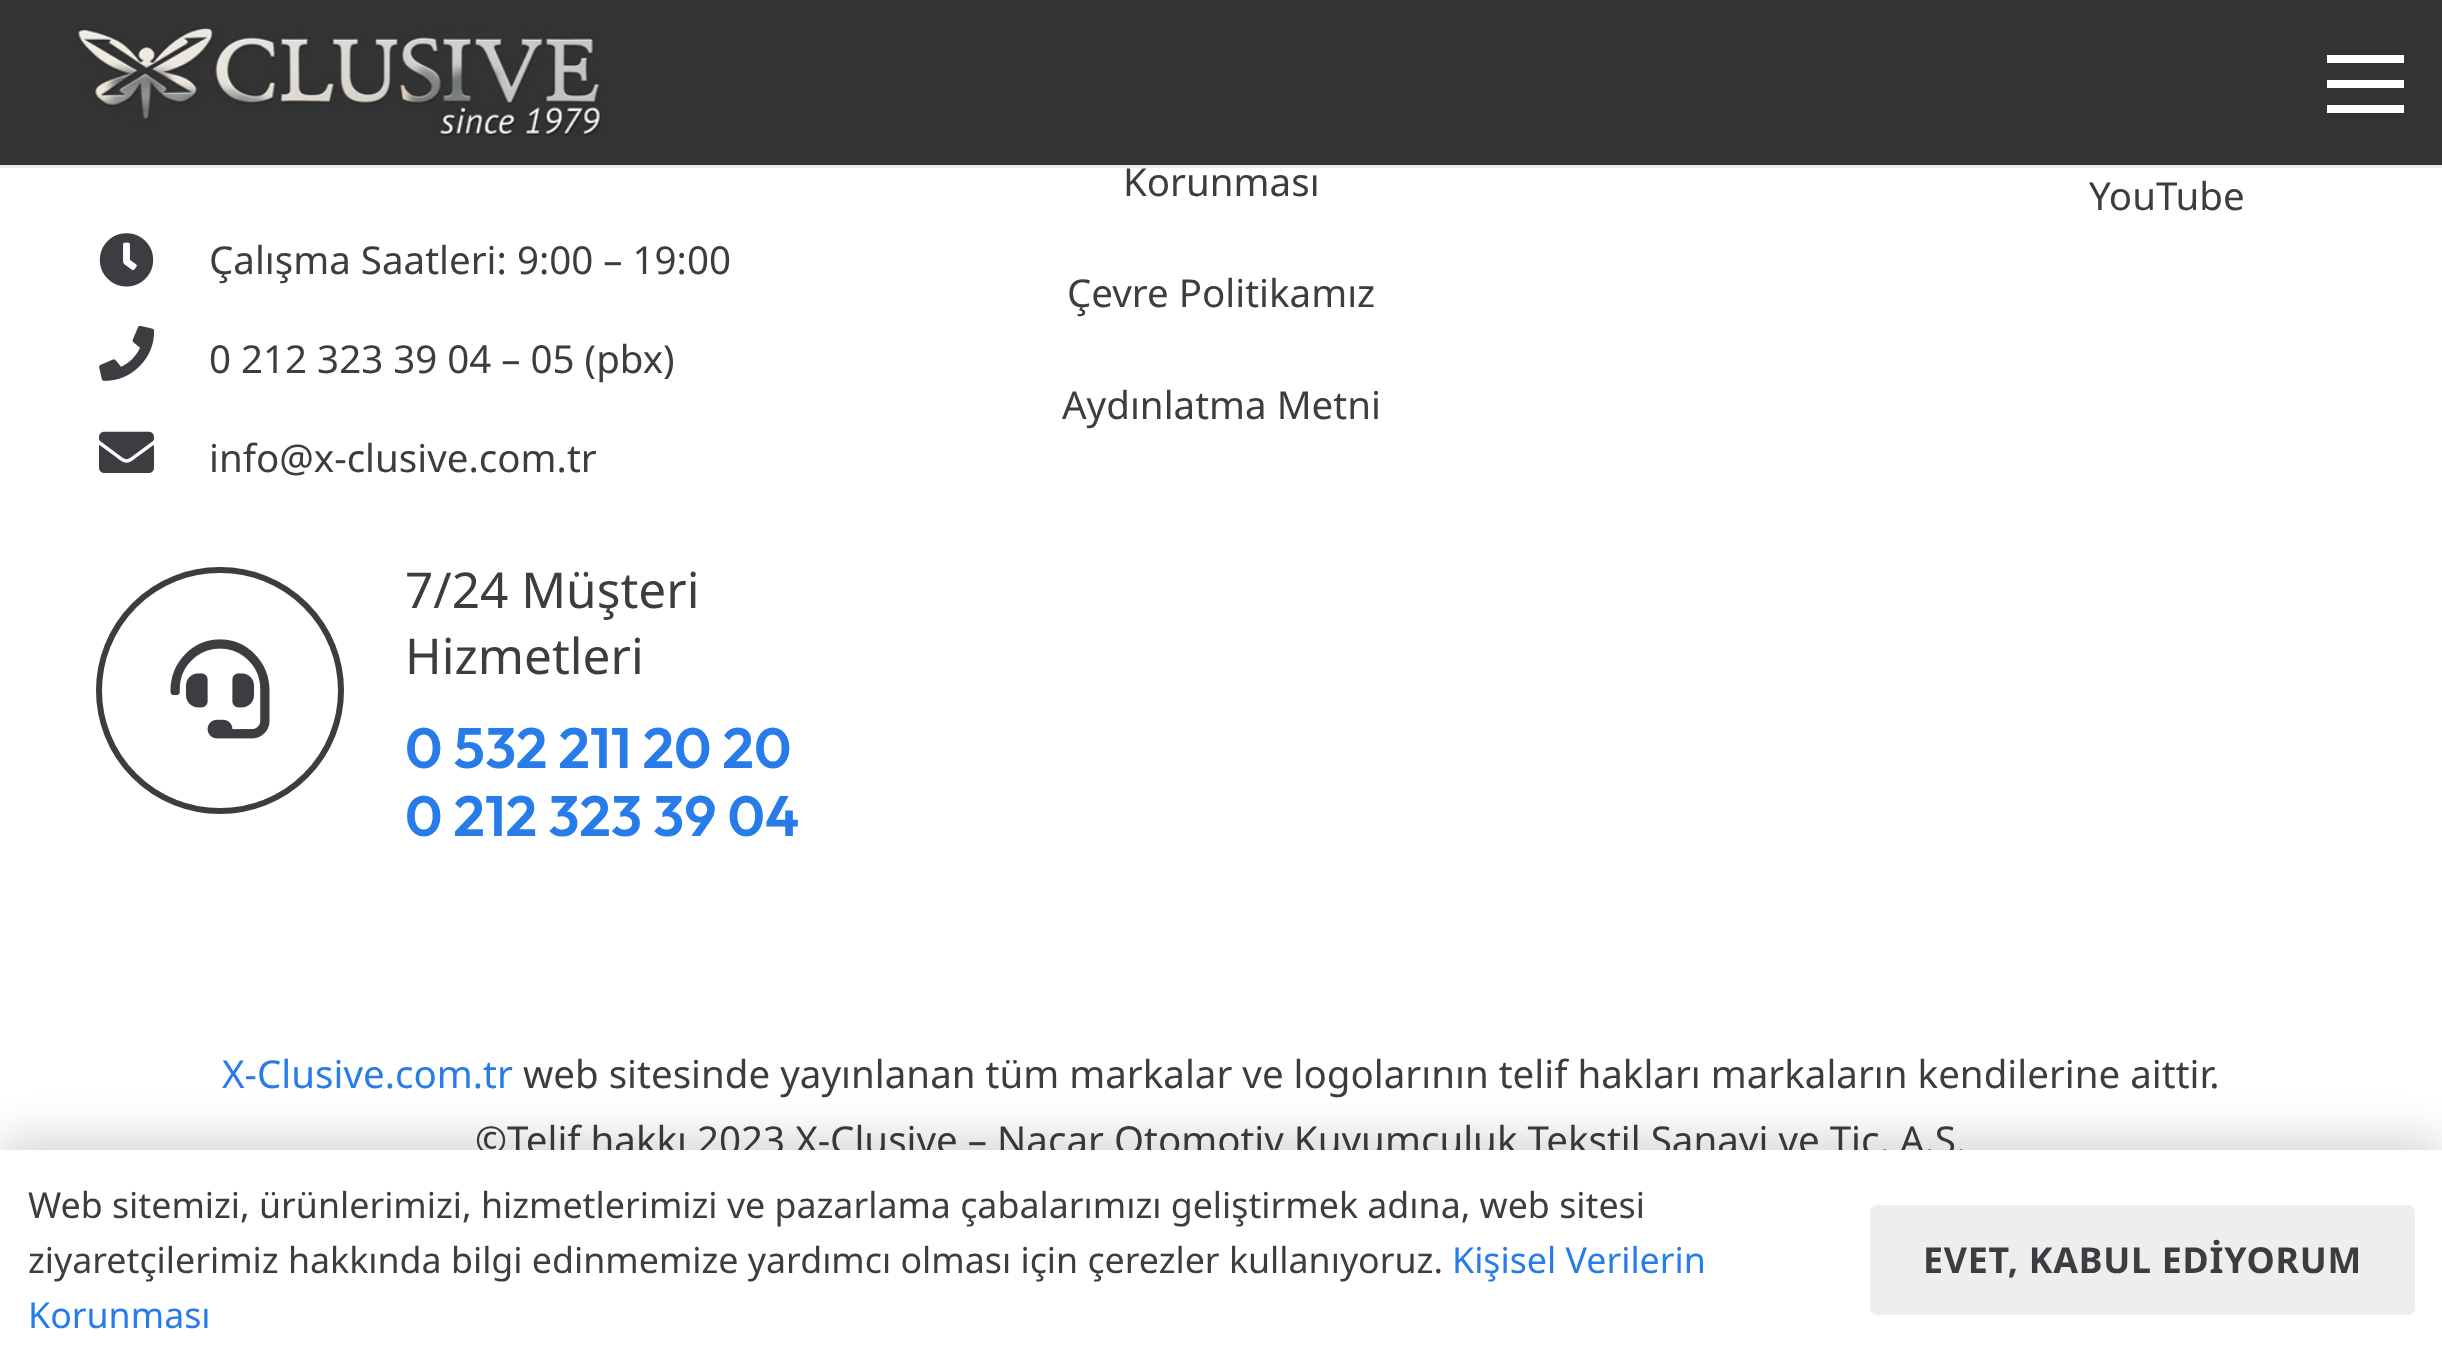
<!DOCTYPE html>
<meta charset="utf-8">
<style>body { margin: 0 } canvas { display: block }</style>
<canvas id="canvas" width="2442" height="1369"></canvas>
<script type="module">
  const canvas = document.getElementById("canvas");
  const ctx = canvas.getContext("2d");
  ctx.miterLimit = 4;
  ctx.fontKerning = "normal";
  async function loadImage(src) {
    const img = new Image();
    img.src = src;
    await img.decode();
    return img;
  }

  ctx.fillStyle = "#ffffff";
  ctx.fillRect(0, 0, 2442, 1369);
  ctx.fillStyle = "rgba(0, 0, 0, 0.08)";
  ctx.fillRect(0, 165, 2442, 3);
  ctx.fillStyle = "#333333";
  ctx.fillRect(0, 0, 2442, 165);
  ctx.drawImage(await loadImage("img1.png"), 77, 27, 524, 109);
  ctx.fillStyle = "#ffffff";
  ctx.fillRect(2327, 80, 77, 8);
  ctx.fillRect(2327, 55, 77, 8);
  ctx.fillRect(2327, 105, 77, 8);
  ctx.font = "38.5px Noto Sans";
  ctx.fillStyle = "#3b3d40";
  ctx.fillText("Korunması", 1123, 196);
  ctx.fillText("Çevre Politikamız", 1067, 307);
  ctx.fillText("Aydınlatma Metni", 1062, 419);
  ctx.fillText("YouTube", 2089, 210);
  ctx.drawImage(await loadImage("img2.png"), 99, 233, 55, 54);
  ctx.fillText("Çalışma Saatleri: 9:00 – 19:00", 209, 274);
  ctx.drawImage(await loadImage("img3.png"), 99, 325, 56, 56);
  ctx.fillText("0 212 323 39 04 – 05 (pbx)", 209, 373);
  ctx.drawImage(await loadImage("img4.png"), 99, 431, 55, 42);
  ctx.fillText("info@x-clusive.com.tr", 209, 472);
  ctx.beginPath();
  ctx.roundRect(99, 570, 242, 241, 120.5);
  ctx.strokeStyle = "#3b3d40";
  ctx.lineWidth = 6;
  ctx.stroke();
  ctx.drawImage(await loadImage("img5.png"), 170, 639, 100, 100);
  ctx.font = "49.5px Noto Sans";
  ctx.fillText("7/24 Müşteri", 405, 608);
  ctx.fillText("Hizmetleri", 405, 674);
  ctx.font = "100 56.75px Outfit";
  ctx.fillStyle = "#277cea";
  ctx.fillText("0 532 211 20 20", 405, 768);
  ctx.fillText("0 212 323 39 04", 405, 836);
  ctx.font = "38.5px Noto Sans";
  ctx.fillText("X-Clusive.com.tr", 222, 1088);
  ctx.fillStyle = "#3b3d40";
  ctx.fillText("web sitesinde yayınlanan tüm markalar ve logolarının telif hakları markaların kendilerine aittir.", 523, 1088);
  ctx.fillText("©Telif hakkı 2023 X-Clusive – Nacar Otomotiv Kuyumculuk Tekstil Sanayi ve Tic. A.Ş.", 475, 1154);
  ctx.fillStyle = "rgba(0, 0, 0, 0.15)";
  ctx.filter = "blur(20.5px)";
  ctx.beginPath();
  ctx.rect(0, 1136, 2442, 220);
  ctx.fill();
  ctx.filter = "none";
  ctx.fillStyle = "#ffffff";
  ctx.fillRect(0, 1150, 2442, 219);
  ctx.font = "35.75px Noto Sans";
  ctx.fillStyle = "#3b3d40";
  ctx.fillText("Web sitemizi, ürünlerimizi, hizmetlerimizi ve pazarlama çabalarımızı geliştirmek adına, web sitesi", 28, 1218);
  ctx.fillText("ziyaretçilerimiz hakkında bilgi edinmemize yardımcı olması için çerezler kullanıyoruz.", 28, 1273);
  ctx.fillStyle = "#277cea";
  ctx.fillText("Kişisel Verilerin", 1452, 1273);
  ctx.fillText("Korunması", 28, 1328);
  ctx.fillStyle = "#eeeeee";
  ctx.beginPath();
  ctx.roundRect(1870, 1205, 545, 110, 7);
  ctx.fill();
  ctx.letterSpacing = "0.75px";
  ctx.font = "bold 35.75px Noto Sans";
  ctx.fillStyle = "#3b3d40";
  ctx.fillText("EVET, KABUL EDİYORUM", 1923, 1273);
</script>
